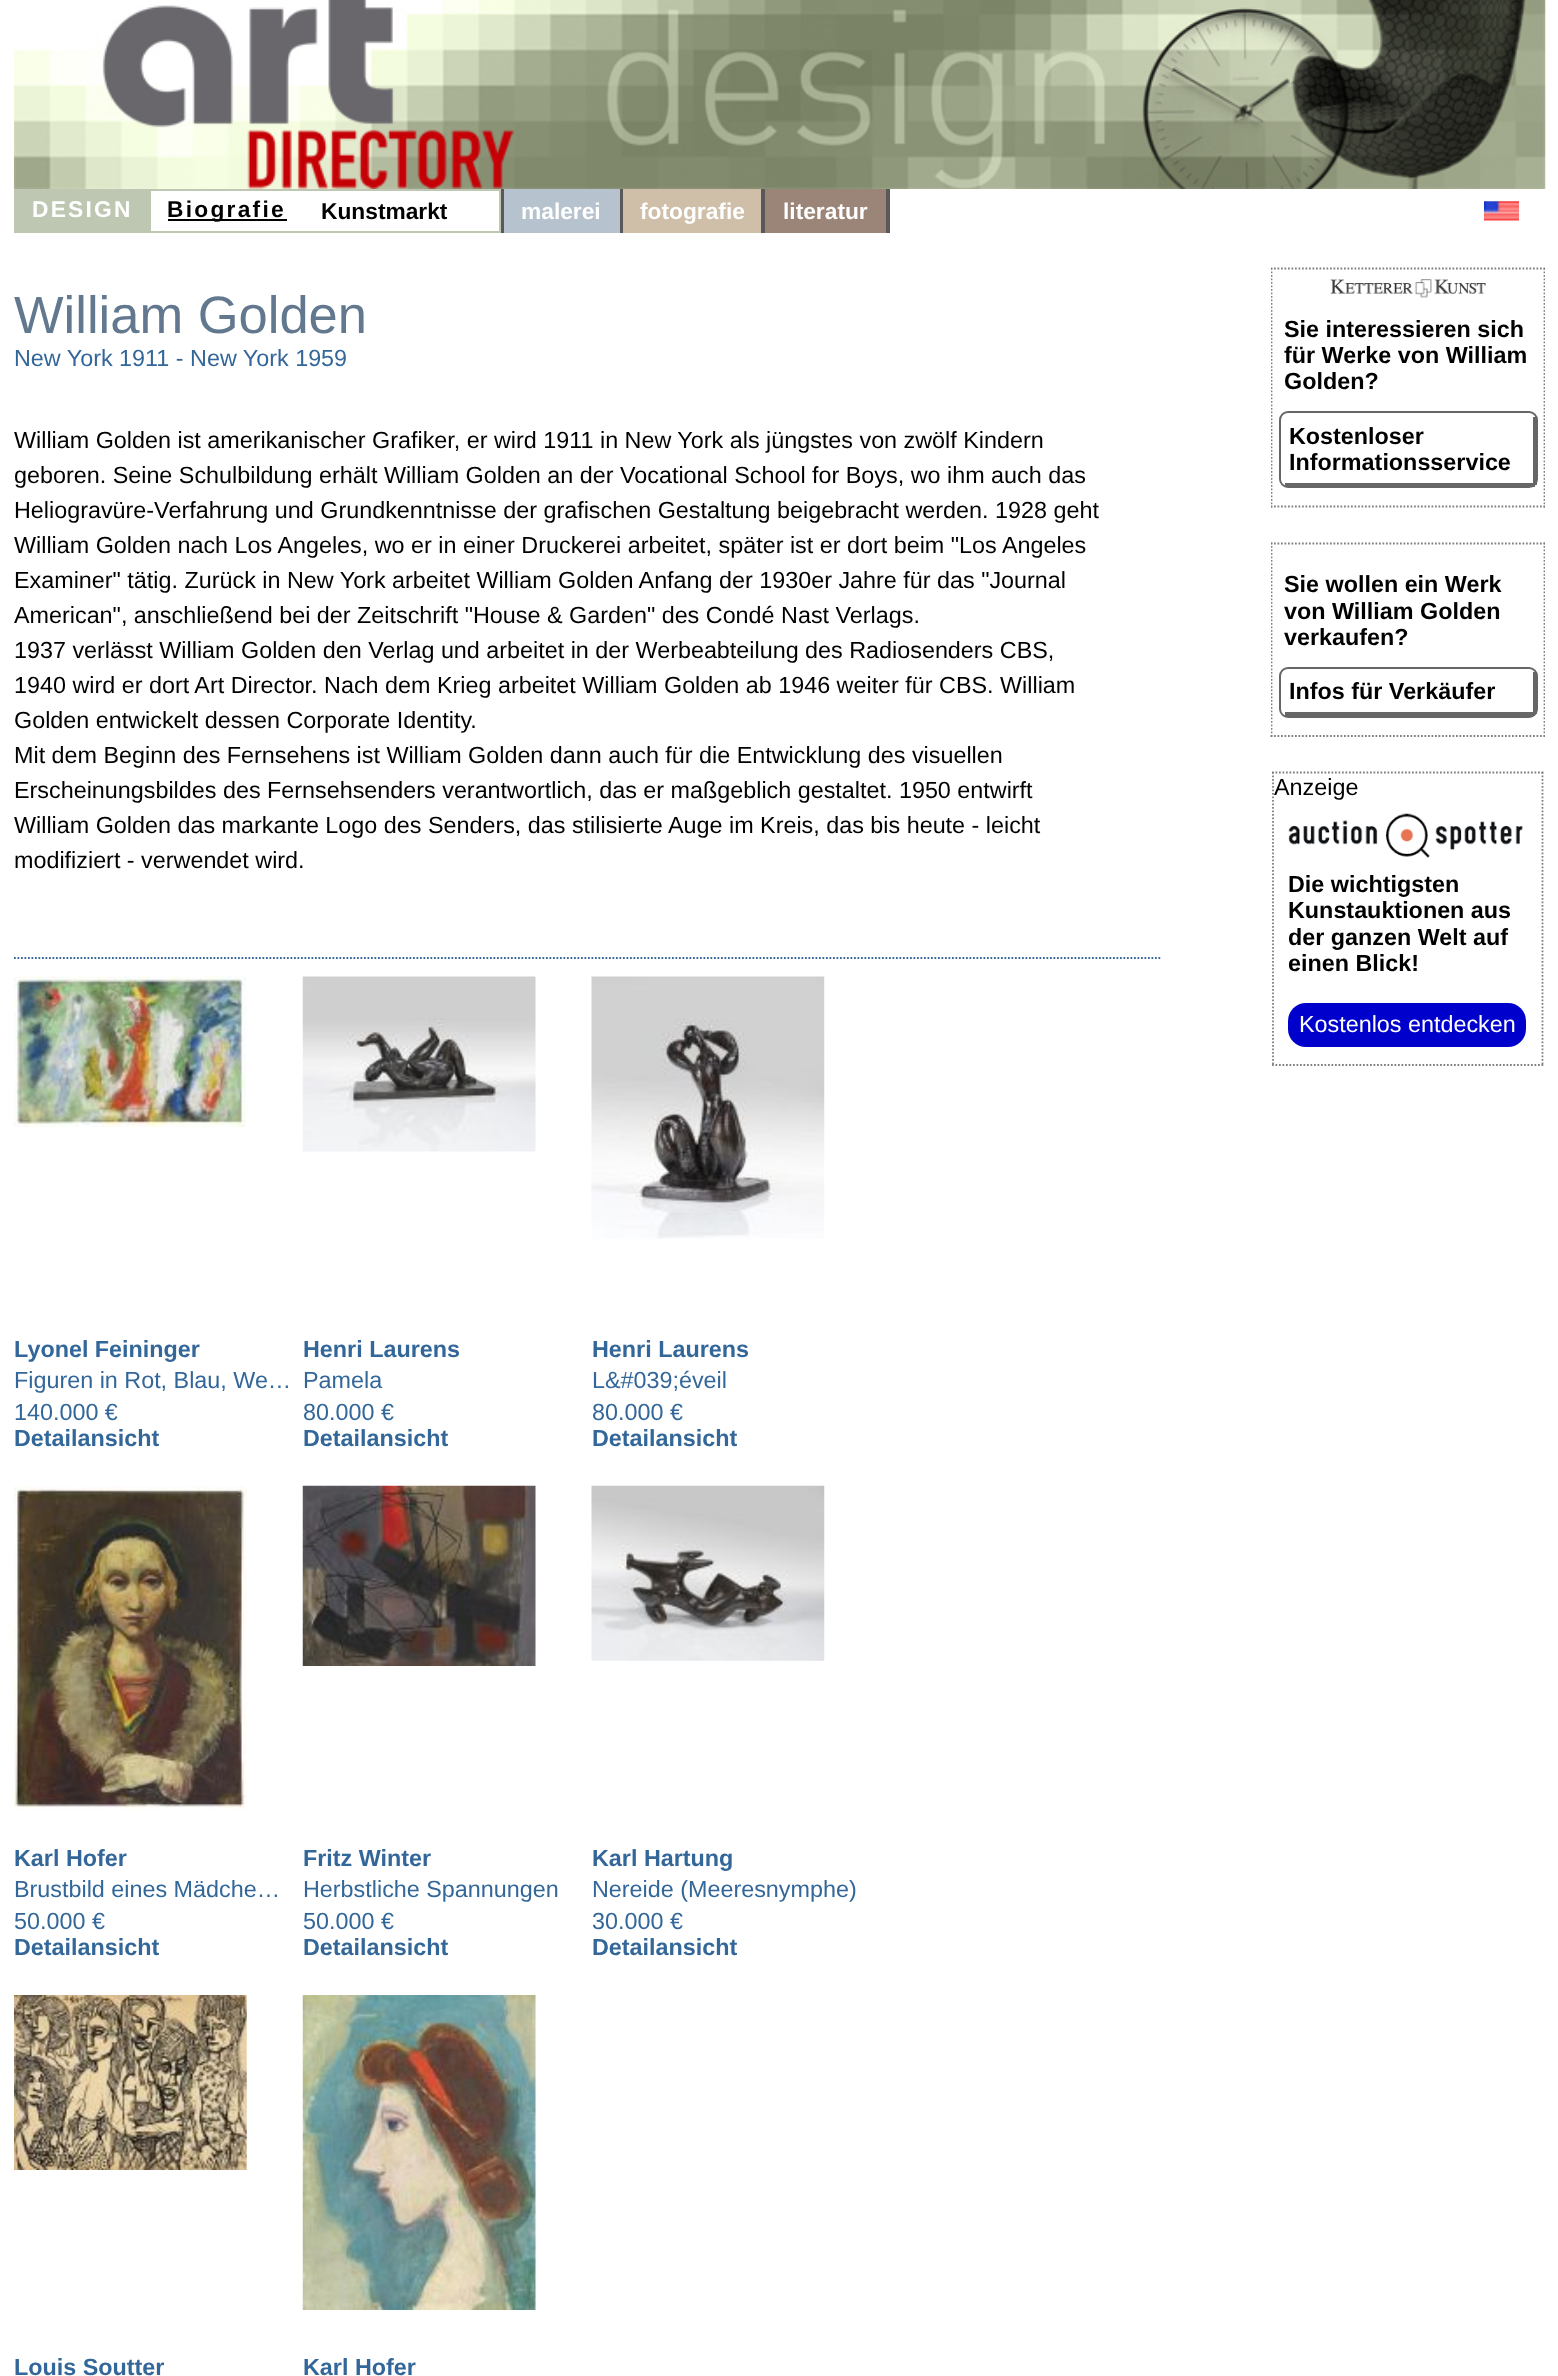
<!DOCTYPE html>
<meta charset="utf-8">
<style>body { margin: 0 } canvas { display: block }</style>
<canvas id="canvas" width="1558" height="2376"></canvas>
<script type="module">
  const canvas = document.getElementById("canvas");
  const ctx = canvas.getContext("2d");
  ctx.miterLimit = 4;
  ctx.fontKerning = "normal";
  async function loadImage(src) {
    const img = new Image();
    img.src = src;
    await img.decode();
    return img;
  }

  ctx.fillStyle = "#ffffff";
  ctx.fillRect(0, 0, 1558, 2376);
  ctx.drawImage(await loadImage("img1.png"), 14, 0, 1532, 189);
  ctx.fillStyle = "#bec7b2";
  ctx.fillRect(14, 189, 137, 44);
  ctx.letterSpacing = "2.25px";
  ctx.font = "bold 22.75px Liberation Sans";
  ctx.fillStyle = "#ffffff";
  ctx.fillText("DESIGN", 32, 217);
  ctx.fillStyle = "#bec7b2";
  ctx.fillRect(151, 189, 315, 2);
  ctx.fillRect(151, 231, 315, 2);
  ctx.fillStyle = "#000000";
  ctx.fillRect(168, 219, 119, 2);
  ctx.fillText("Biografie", 167, 217);
  ctx.letterSpacing = "0px";
  ctx.fillText("Kunstmarkt", 321, 219);
  ctx.fillStyle = "#bec7b2";
  ctx.fillRect(499, 189, 2, 44);
  ctx.fillRect(466, 189, 35, 2);
  ctx.fillRect(466, 231, 35, 2);
  ctx.fillStyle = "#595959";
  ctx.fillRect(501, 189, 3, 44);
  ctx.fillStyle = "#b6c2ce";
  ctx.fillRect(504, 189, 116, 44);
  ctx.fillStyle = "#595959";
  ctx.fillRect(620, 189, 3, 44);
  ctx.fillStyle = "#ffffff";
  ctx.fillText("malerei", 521, 219);
  ctx.fillStyle = "#cfbea8";
  ctx.fillRect(623, 189, 138, 44);
  ctx.fillStyle = "#595959";
  ctx.fillRect(761, 189, 4, 44);
  ctx.fillStyle = "#ffffff";
  ctx.fillText("fotografie", 640, 219);
  ctx.fillStyle = "#9b8578";
  ctx.fillRect(765, 189, 121, 44);
  ctx.fillStyle = "#595959";
  ctx.fillRect(886, 189, 4, 44);
  ctx.fillStyle = "#ffffff";
  ctx.fillText("literatur", 783, 219);
  ctx.drawImage(await loadImage("img2.png"), 1484, 201, 35, 20);
  ctx.font = "52.5px Liberation Sans";
  ctx.fillStyle = "#62788f";
  ctx.fillText("William Golden", 14, 333);
  ctx.font = "23.35px Liberation Sans";
  ctx.fillStyle = "#336799";
  ctx.fillText("New York 1911 - New York 1959", 14, 366);
  ctx.fillStyle = "#000000";
  ctx.fillText("William Golden ist amerikanischer Grafiker, er wird 1911 in New York als jüngstes von zwölf Kindern", 14, 448);
  ctx.fillText("geboren. Seine Schulbildung erhält William Golden an der Vocational School for Boys, wo ihm auch das", 14, 483);
  ctx.fillText("Heliogravüre-Verfahrung und Grundkenntnisse der grafischen Gestaltung beigebracht werden. 1928 geht", 14, 518);
  ctx.fillText("William Golden nach Los Angeles, wo er in einer Druckerei arbeitet, später ist er dort beim \"Los Angeles", 14, 553);
  ctx.fillText("Examiner\" tätig. Zurück in New York arbeitet William Golden Anfang der 1930er Jahre für das \"Journal", 14, 588);
  ctx.fillText("American\", anschließend bei der Zeitschrift \"House & Garden\" des Condé Nast Verlags.", 14, 623);
  ctx.fillText("1937 verlässt William Golden den Verlag und arbeitet in der Werbeabteilung des Radiosenders CBS,", 14, 658);
  ctx.fillText("1940 wird er dort Art Director. Nach dem Krieg arbeitet William Golden ab 1946 weiter für CBS. William", 14, 693);
  ctx.fillText("Golden entwickelt dessen Corporate Identity.", 14, 728);
  ctx.fillText("Mit dem Beginn des Fernsehens ist William Golden dann auch für die Entwicklung des visuellen", 14, 763);
  ctx.fillText("Erscheinungsbildes des Fernsehsenders verantwortlich, das er maßgeblich gestaltet. 1950 entwirft", 14, 798);
  ctx.fillText("William Golden das markante Logo des Senders, das stilisierte Auge im Kreis, das bis heute - leicht", 14, 833);
  ctx.fillText("modifiziert - verwendet wird.", 14, 868);
  ctx.beginPath();
  ctx.moveTo(14, 958);
  ctx.lineTo(1162, 958);
  ctx.strokeStyle = "#336799";
  ctx.lineWidth = 1.8;
  ctx.setLineDash([1.75, 1.75]);
  ctx.stroke();
  ctx.drawImage(await loadImage("img3.png"), 14, 976, 233, 151);
  ctx.font = "bold 23.35px Liberation Sans";
  ctx.fillStyle = "#336799";
  ctx.fillText("Lyonel Feininger", 14, 1357);
  ctx.font = "23.35px Liberation Sans";
  ctx.fillText("Figuren in Rot, Blau, We…", 14, 1388);
  ctx.fillText("140.000 €", 14, 1420);
  ctx.font = "bold 23.35px Liberation Sans";
  ctx.fillText("Detailansicht", 14, 1446);
  ctx.drawImage(await loadImage("img4.png"), 302, 976, 234, 176);
  ctx.fillText("Henri Laurens", 303, 1357);
  ctx.font = "23.35px Liberation Sans";
  ctx.fillText("Pamela", 303, 1388);
  ctx.fillText("80.000 €", 303, 1420);
  ctx.font = "bold 23.35px Liberation Sans";
  ctx.fillText("Detailansicht", 303, 1446);
  ctx.drawImage(await loadImage("img5.png"), 591, 976, 234, 263);
  ctx.fillText("Henri Laurens", 592, 1357);
  ctx.font = "23.35px Liberation Sans";
  ctx.fillText("L&#039;éveil", 592, 1388);
  ctx.fillText("80.000 €", 592, 1420);
  ctx.font = "bold 23.35px Liberation Sans";
  ctx.fillText("Detailansicht", 592, 1446);
  ctx.drawImage(await loadImage("img6.png"), 14, 1486, 233, 325);
  ctx.fillText("Karl Hofer", 14, 1866);
  ctx.font = "23.35px Liberation Sans";
  ctx.fillText("Brustbild eines Mädche…", 14, 1897);
  ctx.fillText("50.000 €", 14, 1929);
  ctx.font = "bold 23.35px Liberation Sans";
  ctx.fillText("Detailansicht", 14, 1955);
  ctx.drawImage(await loadImage("img7.png"), 302, 1485, 234, 181);
  ctx.fillText("Fritz Winter", 303, 1866);
  ctx.font = "23.35px Liberation Sans";
  ctx.fillText("Herbstliche Spannungen", 303, 1897);
  ctx.fillText("50.000 €", 303, 1929);
  ctx.font = "bold 23.35px Liberation Sans";
  ctx.fillText("Detailansicht", 303, 1955);
  ctx.drawImage(await loadImage("img8.png"), 591, 1485, 234, 176);
  ctx.fillText("Karl Hartung", 592, 1866);
  ctx.font = "23.35px Liberation Sans";
  ctx.fillText("Nereide (Meeresnymphe)", 592, 1897);
  ctx.fillText("30.000 €", 592, 1929);
  ctx.font = "bold 23.35px Liberation Sans";
  ctx.fillText("Detailansicht", 592, 1955);
  ctx.drawImage(await loadImage("img9.png"), 14, 1995, 233, 175);
  ctx.fillText("Louis Soutter", 14, 2375);
  ctx.drawImage(await loadImage("img10.png"), 302, 1995, 234, 315);
  ctx.fillText("Karl Hofer", 303, 2375);
  ctx.save();
  ctx.beginPath();
  ctx.rect(1271, 233, 274, 833);
  ctx.clip();
  ctx.beginPath();
  ctx.moveTo(1270.5, 268.5);
  ctx.lineTo(1545, 268.5);
  ctx.strokeStyle = "#808080";
  ctx.stroke();
  ctx.beginPath();
  ctx.moveTo(1544.5, 268);
  ctx.lineTo(1544.5, 507.5);
  ctx.stroke();
  ctx.beginPath();
  ctx.moveTo(1270.5, 506.5);
  ctx.lineTo(1545, 506.5);
  ctx.stroke();
  ctx.beginPath();
  ctx.moveTo(1271.5, 268);
  ctx.lineTo(1271.5, 507.5);
  ctx.stroke();
  ctx.restore();
  ctx.drawImage(await loadImage("img11.png"), 1330, 279, 156, 19);
  ctx.fillStyle = "#000000";
  ctx.fillText("Sie interessieren sich", 1284, 337);
  ctx.fillText("für Werke von William", 1284, 363);
  ctx.fillText("Golden?", 1284, 389);
  ctx.beginPath();
  ctx.roundRect(1280, 412, 257, 75, 8);
  ctx.strokeStyle = "#666666";
  ctx.lineWidth = 2;
  ctx.setLineDash([]);
  ctx.stroke();
  ctx.fillStyle = "#666666";
  ctx.fillRect(1533, 417, 4, 68);
  ctx.fillRect(1285, 483, 250, 4);
  ctx.fillStyle = "#000000";
  ctx.fillText("Kostenloser", 1289, 444);
  ctx.fillText("Informationsservice", 1289, 470);
  ctx.save();
  ctx.beginPath();
  ctx.rect(1271, 233, 274, 833);
  ctx.clip();
  ctx.beginPath();
  ctx.moveTo(1270.5, 543.5);
  ctx.lineTo(1545, 543.5);
  ctx.strokeStyle = "#808080";
  ctx.lineWidth = 1.8;
  ctx.setLineDash([1.75, 1.75]);
  ctx.stroke();
  ctx.beginPath();
  ctx.moveTo(1544.5, 542.5);
  ctx.lineTo(1544.5, 737);
  ctx.stroke();
  ctx.restore();
  ctx.beginPath();
  ctx.moveTo(1270.5, 736);
  ctx.lineTo(1545, 736);
  ctx.strokeStyle = "#808080";
  ctx.lineWidth = 1.8;
  ctx.setLineDash([1.75, 1.75]);
  ctx.stroke();
  ctx.save();
  ctx.beginPath();
  ctx.rect(1271, 233, 274, 833);
  ctx.clip();
  ctx.beginPath();
  ctx.moveTo(1271.5, 542.5);
  ctx.lineTo(1271.5, 737);
  ctx.stroke();
  ctx.restore();
  ctx.fillText("Sie wollen ein Werk", 1284, 592);
  ctx.fillText("von William Golden", 1284, 619);
  ctx.fillText("verkaufen?", 1284, 645);
  ctx.beginPath();
  ctx.roundRect(1280, 668, 257, 49, 8);
  ctx.strokeStyle = "#666666";
  ctx.lineWidth = 2;
  ctx.setLineDash([]);
  ctx.stroke();
  ctx.fillStyle = "#666666";
  ctx.fillRect(1533, 672, 4, 42);
  ctx.fillRect(1285, 712, 250, 4);
  ctx.fillStyle = "#000000";
  ctx.fillText("Infos für Verkäufer", 1289, 699);
  ctx.beginPath();
  ctx.moveTo(1272, 772.5);
  ctx.lineTo(1543.5, 772.5);
  ctx.strokeStyle = "#808080";
  ctx.lineWidth = 1.8;
  ctx.setLineDash([1.75, 1.75]);
  ctx.stroke();
  ctx.beginPath();
  ctx.moveTo(1542.5, 772);
  ctx.lineTo(1542.5, 1066);
  ctx.stroke();
  ctx.beginPath();
  ctx.moveTo(1272, 1065);
  ctx.lineTo(1543.5, 1065);
  ctx.stroke();
  ctx.beginPath();
  ctx.moveTo(1273, 772);
  ctx.lineTo(1273, 1066);
  ctx.stroke();
  ctx.font = "23.35px Liberation Sans";
  ctx.fillText("Anzeige", 1274, 795);
  ctx.drawImage(await loadImage("img12.png"), 1288, 813, 235, 45);
  ctx.font = "bold 23.35px Liberation Sans";
  ctx.fillText("Die wichtigsten", 1288, 892);
  ctx.fillText("Kunstauktionen aus", 1288, 918);
  ctx.fillText("der ganzen Welt auf", 1288, 945);
  ctx.fillText("einen Blick!", 1288, 971);
  ctx.fillStyle = "#0000cc";
  ctx.beginPath();
  ctx.roundRect(1288, 1003, 238, 44, 18);
  ctx.fill();
  ctx.font = "23.35px Liberation Sans";
  ctx.fillStyle = "#ffffff";
  ctx.fillText("Kostenlos entdecken", 1299, 1032);
</script>
